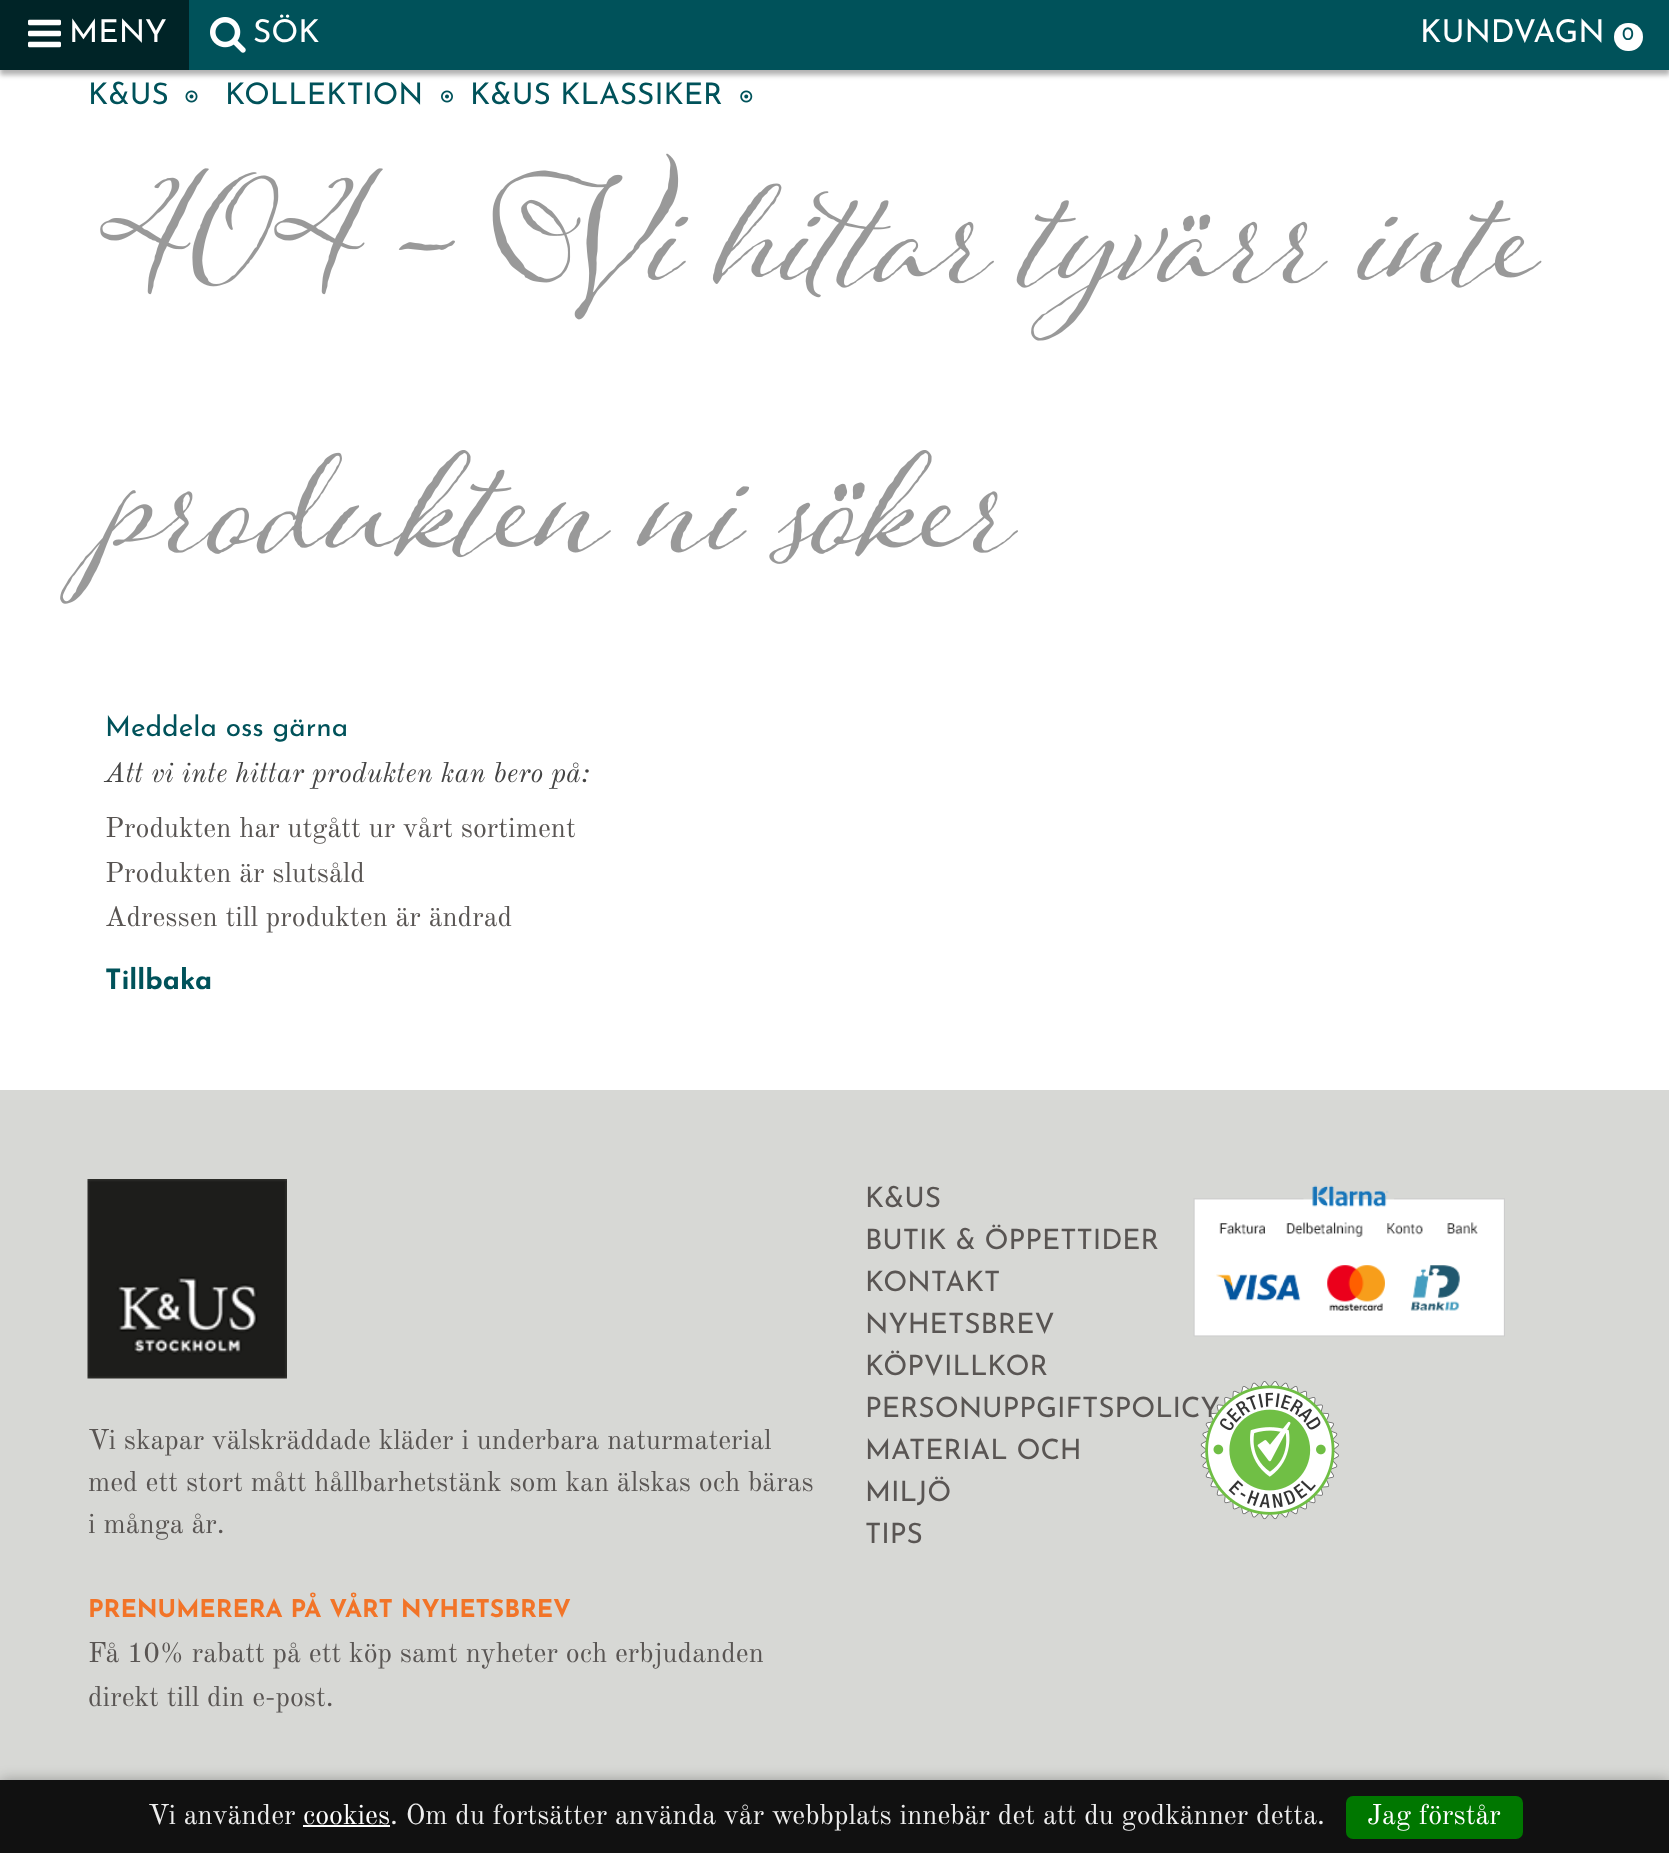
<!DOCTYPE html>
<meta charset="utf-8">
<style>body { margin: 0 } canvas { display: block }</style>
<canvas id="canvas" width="1669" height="1853"></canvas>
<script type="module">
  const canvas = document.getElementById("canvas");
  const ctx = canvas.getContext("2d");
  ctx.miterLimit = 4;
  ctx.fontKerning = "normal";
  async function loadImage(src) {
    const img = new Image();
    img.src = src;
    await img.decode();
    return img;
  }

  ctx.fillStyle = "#d7d8d5";
  ctx.fillRect(0, 0, 1669, 1853);
  ctx.fillStyle = "#ffffff";
  ctx.fillRect(0, 70, 1669, 1020);
  ctx.fillStyle = "rgba(0, 0, 0, 0.3)";
  ctx.filter = "blur(2.5px)";
  ctx.beginPath();
  ctx.rect(0, 5, 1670, 70);
  ctx.fill();
  ctx.filter = "none";
  ctx.fillStyle = "#00525a";
  ctx.fillRect(189, 0, 1480, 70);
  ctx.fillStyle = "#002427";
  ctx.fillRect(0, 0, 189, 70);
  ctx.drawImage(await loadImage("img1.png"), 28, 19, 33, 29);
  ctx.font = "31.5px Josefin Sans";
  ctx.fillStyle = "#ffffff";
  ctx.fillText("MENY", 69, 42);
  ctx.drawImage(await loadImage("img2.png"), 210, 17, 36, 36);
  ctx.fillText("SÖK", 253, 42);
  ctx.fillText("KUNDVAGN", 1420, 42);
  ctx.beginPath();
  ctx.roundRect(1614, 23, 29, 28, 14);
  ctx.fill();
  ctx.font = "19px Josefin Sans";
  ctx.fillStyle = "#00525a";
  ctx.fillText("0", 1622, 40);
  ctx.font = "29.75px Josefin Sans";
  ctx.fillText("K&US", 88, 104);
  ctx.drawImage(await loadImage("img3.png"), 185, 90, 13, 13);
  ctx.fillText("KOLLEKTION", 225, 104);
  ctx.drawImage(await loadImage("img4.png"), 441, 90, 12, 13);
  ctx.fillText("K&US KLASSIKER", 470, 104);
  ctx.drawImage(await loadImage("img5.png"), 740, 90, 13, 13);
  ctx.drawImage(await loadImage("img6.png"), 100, 153, 1442, 188);
  ctx.drawImage(await loadImage("img7.png"), 60, 450, 958, 154);
  ctx.font = "28px Josefin Sans";
  ctx.fillText("Meddela oss gärna", 105, 736);
  ctx.font = "italic 28px Old Standard TT";
  ctx.fillStyle = "#444444";
  ctx.fillText("Att vi inte hittar produkten kan bero på:", 105, 782);
  ctx.font = "28px Old Standard TT";
  ctx.fillStyle = "#595553";
  ctx.fillText("Produkten har utgått ur vårt sortiment", 105, 837);
  ctx.fillText("Produkten är slutsåld", 105, 882);
  ctx.fillText("Adressen till produkten är ändrad", 105, 926);
  ctx.font = "bold 28px Josefin Sans";
  ctx.fillStyle = "#00525a";
  ctx.fillText("Tillbaka", 105, 989);
  ctx.font = "28px Josefin Sans";
  ctx.fillStyle = "#595553";
  ctx.fillText("K&US", 865, 1207);
  ctx.fillText("BUTIK & ÖPPETTIDER", 865, 1249);
  ctx.fillText("KONTAKT", 865, 1291);
  ctx.fillText("NYHETSBREV", 865, 1333);
  ctx.fillText("KÖPVILLKOR", 865, 1375);
  ctx.fillText("PERSONUPPGIFTSPOLICY", 865, 1417);
  ctx.fillText("MATERIAL OCH", 865, 1459);
  ctx.fillText("MILJÖ", 865, 1501);
  ctx.fillText("TIPS", 865, 1543);
  ctx.drawImage(await loadImage("img8.png"), 1193, 1185, 312, 152);
  ctx.drawImage(await loadImage("img9.png"), 1200, 1381, 139, 139);
  ctx.drawImage(await loadImage("img10.png"), 87, 1179, 200, 200);
  ctx.font = "28px Old Standard TT";
  ctx.fillText("Vi skapar välskräddade kläder i underbara naturmaterial", 88, 1449);
  ctx.fillText("med ett stort mått hållbarhetstänk som kan älskas och bäras", 88, 1491);
  ctx.fillText("i många år.", 88, 1533);
  ctx.font = "bold 24.5px Josefin Sans";
  ctx.fillStyle = "#f27428";
  ctx.fillText("PRENUMERERA PÅ VÅRT NYHETSBREV", 88, 1617);
  ctx.font = "28px Old Standard TT";
  ctx.fillStyle = "#595553";
  ctx.fillText("Få 10% rabatt på ett köp samt nyheter och erbjudanden", 88, 1662);
  ctx.fillText("direkt till din e-post.", 88, 1706);
  ctx.fillStyle = "rgba(0, 0, 0, 0.3)";
  ctx.filter = "blur(7px)";
  ctx.beginPath();
  ctx.rect(0, 1780, 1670, 73);
  ctx.fill();
  ctx.filter = "none";
  ctx.fillStyle = "#111111";
  ctx.fillRect(0, 1780, 1669, 73);
  ctx.fillStyle = "#eeeeee";
  ctx.fillText("Vi använder", 148, 1824);
  ctx.fillStyle = "#ffffff";
  ctx.fillText("cookies", 303, 1824);
  ctx.fillRect(303, 1825, 87, 2);
  ctx.fillStyle = "#eeeeee";
  ctx.fillText(". Om du fortsätter använda vår webbplats innebär det att du godkänner detta.", 390, 1824);
  ctx.fillStyle = "#007700";
  ctx.beginPath();
  ctx.roundRect(1346, 1796, 177, 43, 7);
  ctx.fill();
  ctx.fillStyle = "#ffffff";
  ctx.fillText("Jag förstår", 1367, 1824);
</script>
